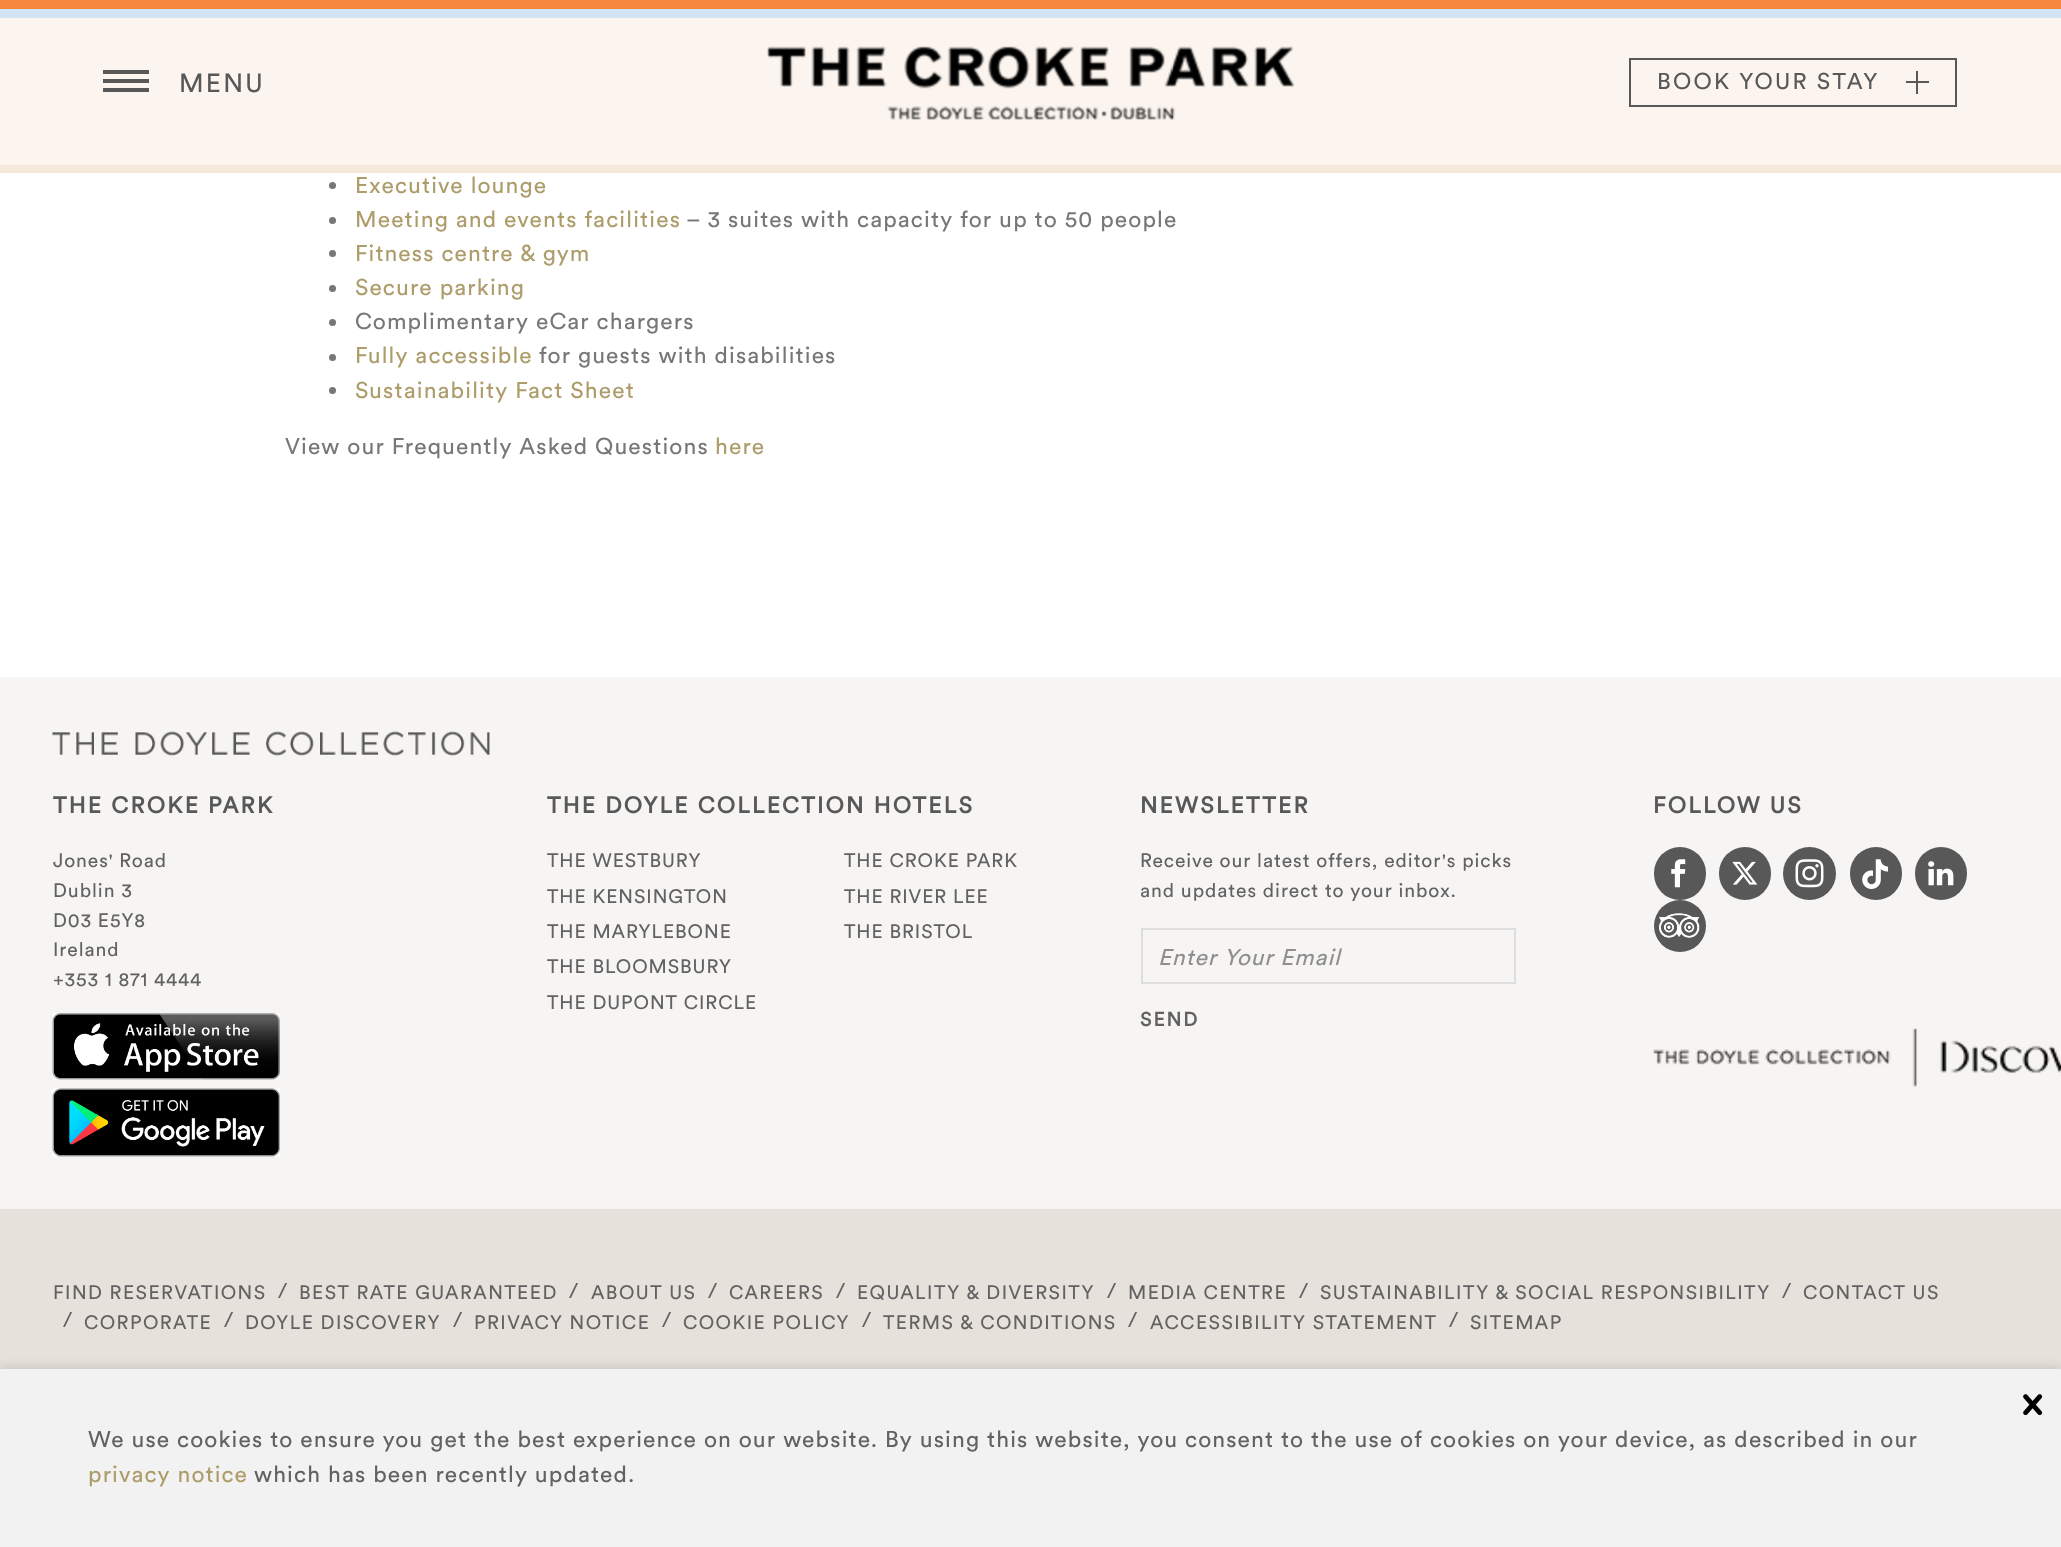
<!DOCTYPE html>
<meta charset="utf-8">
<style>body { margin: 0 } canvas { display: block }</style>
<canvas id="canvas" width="2061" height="1547"></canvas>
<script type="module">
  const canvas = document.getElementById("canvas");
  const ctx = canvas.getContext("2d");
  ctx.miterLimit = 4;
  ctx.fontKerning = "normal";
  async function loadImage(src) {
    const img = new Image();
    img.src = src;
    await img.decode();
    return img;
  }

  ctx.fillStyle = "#ffffff";
  ctx.fillRect(0, 0, 2061, 1547);
  ctx.fillStyle = "#fcf5ef";
  ctx.fillRect(0, 18, 2061, 147);
  ctx.fillStyle = "#f6e8db";
  ctx.fillRect(0, 165, 2061, 8);
  ctx.fillStyle = "#f5863c";
  ctx.fillRect(0, 0, 2061, 9);
  ctx.fillStyle = "#d2e4f5";
  ctx.fillRect(0, 9, 2061, 9);
  ctx.fillStyle = "#585858";
  ctx.fillRect(103, 70, 46, 4);
  ctx.fillRect(103, 79, 46, 4);
  ctx.fillRect(103, 88, 46, 4);
  ctx.letterSpacing = "2.25px";
  ctx.font = "26px Circular";
  ctx.fillText("MENU", 179, 92);
  ctx.drawImage(await loadImage("img1.png"), 767, 46, 528, 74);
  ctx.strokeStyle = "#585858";
  ctx.lineWidth = 2;
  ctx.strokeRect(1630, 59, 326, 47);
  ctx.font = "22.75px Circular";
  ctx.fillText("BOOK YOUR STAY", 1657, 89);
  ctx.fillRect(1906, 81, 23, 2);
  ctx.fillRect(1916, 71, 2, 23);
  ctx.fillStyle = "#777777";
  ctx.beginPath();
  ctx.arc(332.5, 185.5, 3.5, 0, Math.PI * 2);
  ctx.fill();
  ctx.letterSpacing = "1.14px";
  ctx.fillStyle = "#ad9d6b";
  ctx.fillText("Executive lounge", 355, 193);
  ctx.fillStyle = "#777777";
  ctx.beginPath();
  ctx.arc(332.5, 220.5, 3.5, 0, Math.PI * 2);
  ctx.fill();
  ctx.fillStyle = "#ad9d6b";
  ctx.fillText("Meeting and events facilities", 355, 227);
  ctx.fillStyle = "#777777";
  ctx.fillText("– 3 suites with capacity for up to 50 people", 686, 227);
  ctx.beginPath();
  ctx.arc(332.5, 253.5, 3.5, 0, Math.PI * 2);
  ctx.fill();
  ctx.fillStyle = "#ad9d6b";
  ctx.fillText("Fitness centre & gym", 355, 261);
  ctx.fillStyle = "#777777";
  ctx.beginPath();
  ctx.arc(332.5, 288.5, 3.5, 0, Math.PI * 2);
  ctx.fill();
  ctx.fillStyle = "#ad9d6b";
  ctx.fillText("Secure parking", 355, 295);
  ctx.fillStyle = "#777777";
  ctx.beginPath();
  ctx.arc(332.5, 322.5, 3.5, 0, Math.PI * 2);
  ctx.fill();
  ctx.fillText("Complimentary eCar chargers", 355, 329);
  ctx.beginPath();
  ctx.arc(332.5, 357.5, 3.5, 0, Math.PI * 2);
  ctx.fill();
  ctx.fillStyle = "#ad9d6b";
  ctx.fillText("Fully accessible", 355, 363);
  ctx.fillStyle = "#777777";
  ctx.fillText("for guests with disabilities", 539, 363);
  ctx.beginPath();
  ctx.arc(332.5, 390.5, 3.5, 0, Math.PI * 2);
  ctx.fill();
  ctx.fillStyle = "#ad9d6b";
  ctx.fillText("Sustainability Fact Sheet", 355, 398);
  ctx.fillStyle = "#777777";
  ctx.fillText("View our Frequently Asked Questions", 285, 454);
  ctx.fillStyle = "#ad9d6b";
  ctx.fillText("here", 715, 454);
  ctx.fillStyle = "#f6f5f3";
  ctx.fillRect(0, 677, 2061, 532);
  ctx.drawImage(await loadImage("img2.png"), 52, 731, 438, 25);
  ctx.letterSpacing = "2.25px";
  ctx.font = "bold 22.75px Circular";
  ctx.fillStyle = "#585858";
  ctx.fillText("THE CROKE PARK", 53, 813);
  ctx.letterSpacing = "0.95px";
  ctx.font = "19.25px Circular";
  ctx.fillStyle = "#626262";
  ctx.fillText("Jones' Road", 53, 867);
  ctx.fillText("Dublin 3", 53, 897);
  ctx.fillText("D03 E5Y8", 53, 927);
  ctx.fillText("Ireland", 53, 956);
  ctx.fillText("+353 1 871 4444", 53, 986);
  ctx.drawImage(await loadImage("img3.png"), 52, 1013, 228, 67);
  ctx.drawImage(await loadImage("img4.png"), 52, 1088, 228, 69);
  ctx.letterSpacing = "2.25px";
  ctx.font = "bold 22.75px Circular";
  ctx.fillStyle = "#585858";
  ctx.fillText("THE DOYLE COLLECTION HOTELS", 547, 813);
  ctx.letterSpacing = "0.95px";
  ctx.font = "19.25px Circular";
  ctx.fillStyle = "#626262";
  ctx.fillText("THE WESTBURY", 547, 867);
  ctx.fillText("THE KENSINGTON", 547, 903);
  ctx.fillText("THE MARYLEBONE", 547, 938);
  ctx.fillText("THE BLOOMSBURY", 547, 973);
  ctx.fillText("THE DUPONT CIRCLE", 547, 1009);
  ctx.fillText("THE CROKE PARK", 844, 867);
  ctx.fillText("THE RIVER LEE", 844, 903);
  ctx.fillText("THE BRISTOL", 844, 938);
  ctx.letterSpacing = "2.25px";
  ctx.font = "bold 22.75px Circular";
  ctx.fillStyle = "#585858";
  ctx.fillText("NEWSLETTER", 1140, 813);
  ctx.letterSpacing = "0.95px";
  ctx.font = "19.25px Circular";
  ctx.fillStyle = "#626262";
  ctx.fillText("Receive our latest offers, editor's picks", 1140, 867);
  ctx.fillText("and updates direct to your inbox.", 1140, 897);
  ctx.strokeStyle = "#dedede";
  ctx.strokeRect(1142, 929, 373, 54);
  ctx.font = "italic 22.75px Circular";
  ctx.fillStyle = "#8f8f8f";
  ctx.fillText("Enter Your Email", 1158, 965);
  ctx.letterSpacing = "2px";
  ctx.font = "bold 19.25px Circular";
  ctx.fillStyle = "#626262";
  ctx.fillText("SEND", 1140, 1026);
  ctx.letterSpacing = "2.25px";
  ctx.font = "bold 22.75px Circular";
  ctx.fillStyle = "#585858";
  ctx.fillText("FOLLOW US", 1653, 813);
  ctx.beginPath();
  ctx.roundRect(1654, 847, 52, 53, 26);
  ctx.fill();
  ctx.drawImage(await loadImage("img5.png"), 1671, 859, 15, 29);
  ctx.beginPath();
  ctx.roundRect(1719, 847, 52, 53, 26);
  ctx.fill();
  ctx.drawImage(await loadImage("img6.png"), 1732, 861, 26, 24);
  ctx.beginPath();
  ctx.arc(1809.5, 873.5, 26.5, 0, Math.PI * 2);
  ctx.fill();
  ctx.drawImage(await loadImage("img7.png"), 1795, 859, 29, 29);
  ctx.beginPath();
  ctx.roundRect(1850, 847, 52, 53, 26);
  ctx.fill();
  ctx.drawImage(await loadImage("img8.png"), 1862, 859, 27, 30);
  ctx.beginPath();
  ctx.roundRect(1915, 847, 52, 53, 26);
  ctx.fill();
  ctx.drawImage(await loadImage("img9.png"), 1928, 861, 26, 25);
  ctx.beginPath();
  ctx.arc(1680, 926, 26, 0, Math.PI * 2);
  ctx.fill();
  ctx.drawImage(await loadImage("img10.png"), 1659, 913, 41, 25);
  ctx.drawImage(await loadImage("img11.png"), 1653, 1028, 408, 59);
  ctx.fillStyle = "#e6e2db";
  ctx.fillRect(0, 1209, 2061, 160);
  ctx.letterSpacing = "1.45px";
  ctx.font = "19.25px Circular";
  ctx.fillStyle = "#626262";
  ctx.fillText("FIND RESERVATIONS", 53, 1299);
  ctx.font = "21px Circular";
  ctx.fillText("/", 278, 1298);
  ctx.font = "19.25px Circular";
  ctx.fillText("BEST RATE GUARANTEED", 299, 1299);
  ctx.font = "21px Circular";
  ctx.fillText("/", 569, 1298);
  ctx.font = "19.25px Circular";
  ctx.fillText("ABOUT US", 591, 1299);
  ctx.font = "21px Circular";
  ctx.fillText("/", 708, 1298);
  ctx.font = "19.25px Circular";
  ctx.fillText("CAREERS", 729, 1299);
  ctx.font = "21px Circular";
  ctx.fillText("/", 836, 1298);
  ctx.font = "19.25px Circular";
  ctx.fillText("EQUALITY & DIVERSITY", 857, 1299);
  ctx.font = "21px Circular";
  ctx.fillText("/", 1107, 1298);
  ctx.font = "19.25px Circular";
  ctx.fillText("MEDIA CENTRE", 1128, 1299);
  ctx.font = "21px Circular";
  ctx.fillText("/", 1299, 1298);
  ctx.font = "19.25px Circular";
  ctx.fillText("SUSTAINABILITY & SOCIAL RESPONSIBILITY", 1320, 1299);
  ctx.font = "21px Circular";
  ctx.fillText("/", 1782, 1298);
  ctx.font = "19.25px Circular";
  ctx.fillText("CONTACT US", 1803, 1299);
  ctx.font = "21px Circular";
  ctx.fillText("/", 63, 1327);
  ctx.font = "19.25px Circular";
  ctx.fillText("CORPORATE", 84, 1329);
  ctx.font = "21px Circular";
  ctx.fillText("/", 224, 1327);
  ctx.font = "19.25px Circular";
  ctx.fillText("DOYLE DISCOVERY", 245, 1329);
  ctx.font = "21px Circular";
  ctx.fillText("/", 453, 1327);
  ctx.font = "19.25px Circular";
  ctx.fillText("PRIVACY NOTICE", 474, 1329);
  ctx.font = "21px Circular";
  ctx.fillText("/", 662, 1327);
  ctx.font = "19.25px Circular";
  ctx.fillText("COOKIE POLICY", 683, 1329);
  ctx.font = "21px Circular";
  ctx.fillText("/", 862, 1327);
  ctx.font = "19.25px Circular";
  ctx.fillText("TERMS & CONDITIONS", 883, 1329);
  ctx.font = "21px Circular";
  ctx.fillText("/", 1128, 1327);
  ctx.font = "19.25px Circular";
  ctx.fillText("ACCESSIBILITY STATEMENT", 1150, 1329);
  ctx.font = "21px Circular";
  ctx.fillText("/", 1449, 1327);
  ctx.font = "19.25px Circular";
  ctx.fillText("SITEMAP", 1470, 1329);
  ctx.fillStyle = "rgba(0, 0, 0, 0.18)";
  ctx.filter = "blur(6px)";
  ctx.beginPath();
  ctx.rect(0, 1369, 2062, 178);
  ctx.fill();
  ctx.filter = "none";
  ctx.fillStyle = "#f2f2f2";
  ctx.fillRect(0, 1369, 2061, 178);
  ctx.drawImage(await loadImage("img12.png"), 2023, 1394, 20, 22);
  ctx.letterSpacing = "1.14px";
  ctx.font = "22.75px Circular";
  ctx.fillStyle = "#626262";
  ctx.fillText("We use cookies to ensure you get the best experience on our website. By using this website, you consent to the use of cookies on your device, as described in our", 88, 1447);
  ctx.fillStyle = "#ad9d6b";
  ctx.fillText("privacy notice", 88, 1482);
  ctx.fillStyle = "#626262";
  ctx.fillText("which has been recently updated.", 254, 1482);
</script>
